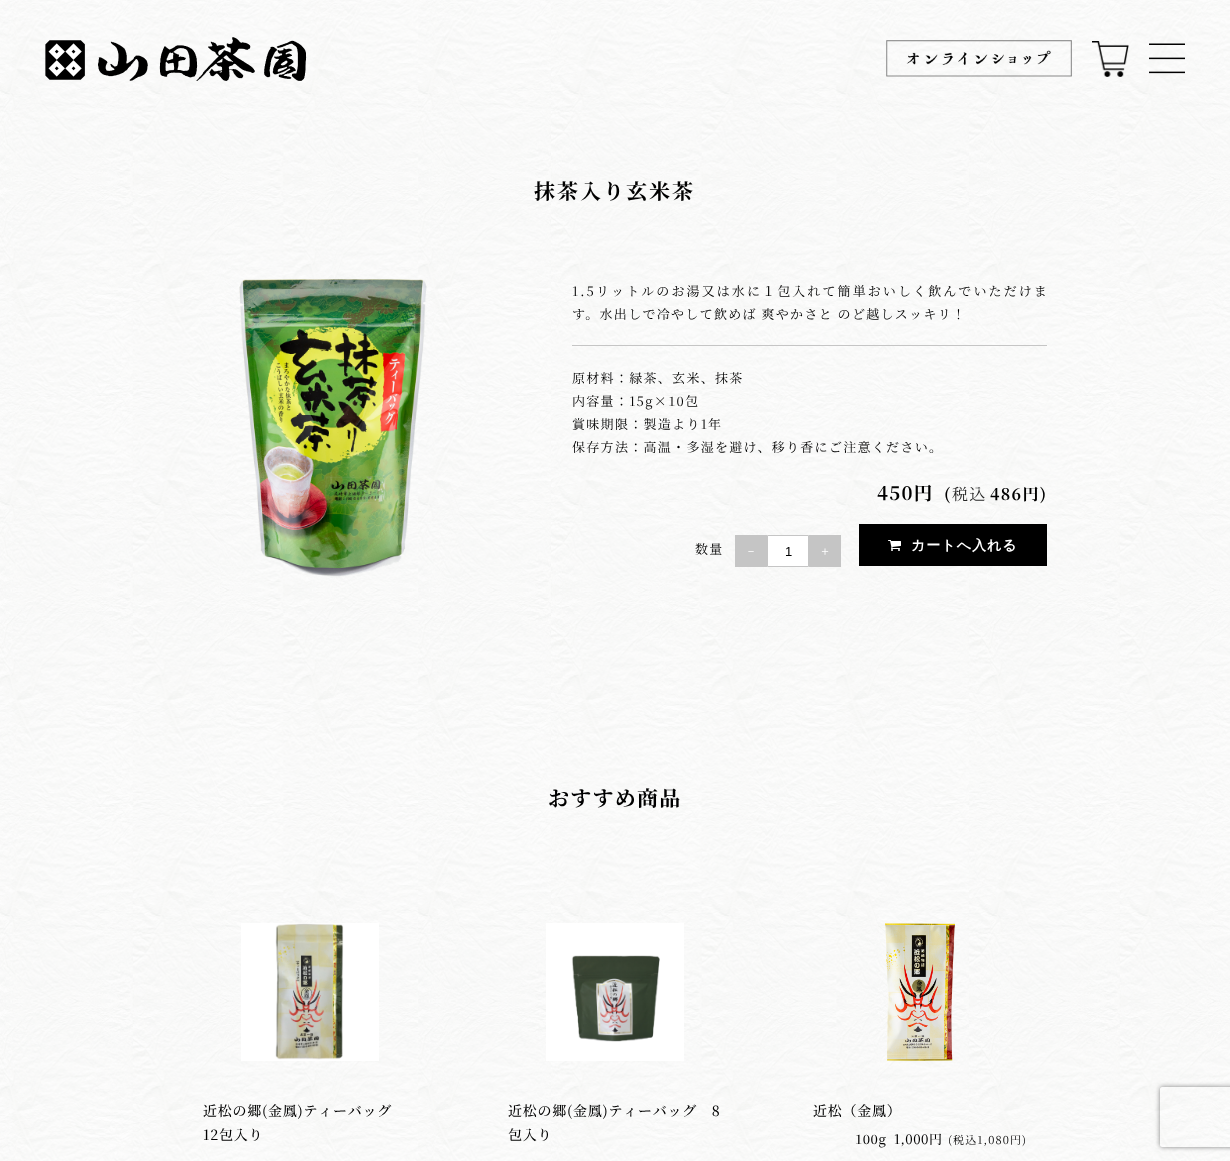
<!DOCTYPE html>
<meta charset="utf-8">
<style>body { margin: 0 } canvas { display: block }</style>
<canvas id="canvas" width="1230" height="1161"></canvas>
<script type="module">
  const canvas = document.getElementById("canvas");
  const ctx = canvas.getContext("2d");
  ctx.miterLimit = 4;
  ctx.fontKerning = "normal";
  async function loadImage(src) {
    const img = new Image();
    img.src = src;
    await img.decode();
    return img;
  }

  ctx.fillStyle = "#ffffff";
  ctx.fillRect(0, 0, 1230, 1161);
  ctx.drawImage(await loadImage("img1.png"), 0, 0, 1230, 1161);
  ctx.drawImage(await loadImage("img2.png"), 45, 37, 262, 44);
  ctx.drawImage(await loadImage("img3.png"), 886, 40, 186, 37);
  ctx.drawImage(await loadImage("img4.png"), 1092, 41, 37, 36);
  ctx.drawImage(await loadImage("img5.png"), 1149, 43, 36, 31);
  ctx.letterSpacing = "2px";
  ctx.font = "bold 21px Noto Serif JP";
  ctx.fillStyle = "#000000";
  ctx.fillText("抹茶入り玄米茶", 534, 199);
  ctx.drawImage(await loadImage("img6.png"), 239, 279, 188, 298);
  ctx.letterSpacing = "2.1px";
  ctx.font = "13px Noto Serif JP";
  ctx.fillText("1.5リットルのお湯又は水に１包入れて簡単おいしく飲んでいただけま", 572, 296);
  ctx.letterSpacing = "1.3px";
  ctx.fillText("す。水出しで冷やして飲めば 爽やかさと のど越しスッキリ！", 572, 319);
  ctx.fillStyle = "#c5c5c5";
  ctx.fillRect(572, 345, 475, 1);
  ctx.fillStyle = "#000000";
  ctx.fillText("原材料：緑茶、玄米、抹茶", 572, 383);
  ctx.fillText("内容量：15g×10包", 572, 406);
  ctx.fillText("賞味期限：製造より1年", 572, 429);
  ctx.fillText("保存方法：高温・多湿を避け、移り香にご注意ください。", 572, 452);
  ctx.font = "bold 18.5px Noto Serif JP";
  ctx.fillText("450円", 877, 500);
  ctx.font = "bold 16px Noto Serif JP";
  ctx.fillText("(", 944, 500);
  ctx.font = "16px Noto Serif JP";
  ctx.fillStyle = "#262626";
  ctx.fillText("税込", 952, 500);
  ctx.font = "bold 16px Noto Serif JP";
  ctx.fillStyle = "#000000";
  ctx.fillText("486円)", 990, 500);
  ctx.font = "13px Noto Serif JP";
  ctx.fillText("数量", 695, 554);
  ctx.fillStyle = "#c5c5c5";
  ctx.fillRect(735, 535, 32, 32);
  ctx.letterSpacing = "0px";
  ctx.font = "500 12px WenQuanYi Zen Hei";
  ctx.fillStyle = "#ffffff";
  ctx.fillText("－", 745, 555);
  ctx.beginPath();
  ctx.rect(767.5, 535.5, 41, 31);
  ctx.fill();
  ctx.strokeStyle = "#c5c5c5";
  ctx.stroke();
  ctx.font = "13px Liberation Sans";
  ctx.fillStyle = "#000000";
  ctx.fillText("1", 785, 556);
  ctx.fillStyle = "#c5c5c5";
  ctx.fillRect(809, 535, 32, 32);
  ctx.font = "500 12px WenQuanYi Zen Hei";
  ctx.fillStyle = "#ffffff";
  ctx.fillText("＋", 819, 555);
  ctx.fillStyle = "#000000";
  ctx.fillRect(859, 524, 188, 42);
  ctx.drawImage(await loadImage("img7.png"), 888, 540, 13, 11);
  ctx.letterSpacing = "1px";
  ctx.font = "bold 14px WenQuanYi Zen Hei";
  ctx.fillStyle = "#ffffff";
  ctx.fillText("カートへ入れる", 911, 550);
  ctx.letterSpacing = "1.25px";
  ctx.font = "bold 21px Noto Serif JP";
  ctx.fillStyle = "#000000";
  ctx.fillText("おすすめ商品", 548, 806);
  ctx.drawImage(await loadImage("img8.png"), 241, 923, 138, 138);
  ctx.letterSpacing = "0.75px";
  ctx.font = "500 14px Noto Serif JP";
  ctx.fillText("近松の郷(金鳳)ティーバッグ", 203, 1116);
  ctx.fillText("12包入り", 203, 1140);
  ctx.drawImage(await loadImage("img9.png"), 546, 923, 138, 138);
  ctx.fillText("近松の郷(金鳳)ティーバッグ　8", 508, 1116);
  ctx.fillText("包入り", 508, 1140);
  ctx.drawImage(await loadImage("img10.png"), 885, 923, 70, 138);
  ctx.fillText("近松（金鳳）", 813, 1116);
  ctx.letterSpacing = "0.5px";
  ctx.font = "500 13px Noto Serif JP";
  ctx.fillText("100g", 855, 1144);
  ctx.fillText("1,000円", 894, 1144);
  ctx.letterSpacing = "1.1px";
  ctx.font = "11px Noto Serif JP";
  ctx.fillText("(税込1,080円)", 948, 1144);
  ctx.save();
  ctx.beginPath();
  ctx.moveTo(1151, 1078);
  ctx.lineTo(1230, 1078);
  ctx.lineTo(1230, 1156);
  ctx.lineTo(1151, 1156);
  ctx.closePath();
  ctx.moveTo(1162, 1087);
  ctx.lineTo(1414, 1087);
  ctx.bezierCurveTo(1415, 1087, 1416, 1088, 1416, 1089);
  ctx.lineTo(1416, 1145);
  ctx.bezierCurveTo(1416, 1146, 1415, 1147, 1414, 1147);
  ctx.lineTo(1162, 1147);
  ctx.bezierCurveTo(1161, 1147, 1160, 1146, 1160, 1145);
  ctx.lineTo(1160, 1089);
  ctx.bezierCurveTo(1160, 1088, 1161, 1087, 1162, 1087);
  ctx.closePath();
  ctx.clip("evenodd");
  ctx.fillStyle = "#808080";
  ctx.filter = "blur(2.5px)";
  ctx.beginPath();
  ctx.roundRect(1160, 1087, 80, 60, 2);
  ctx.fill();
  ctx.filter = "none";
  ctx.restore();
</script>
